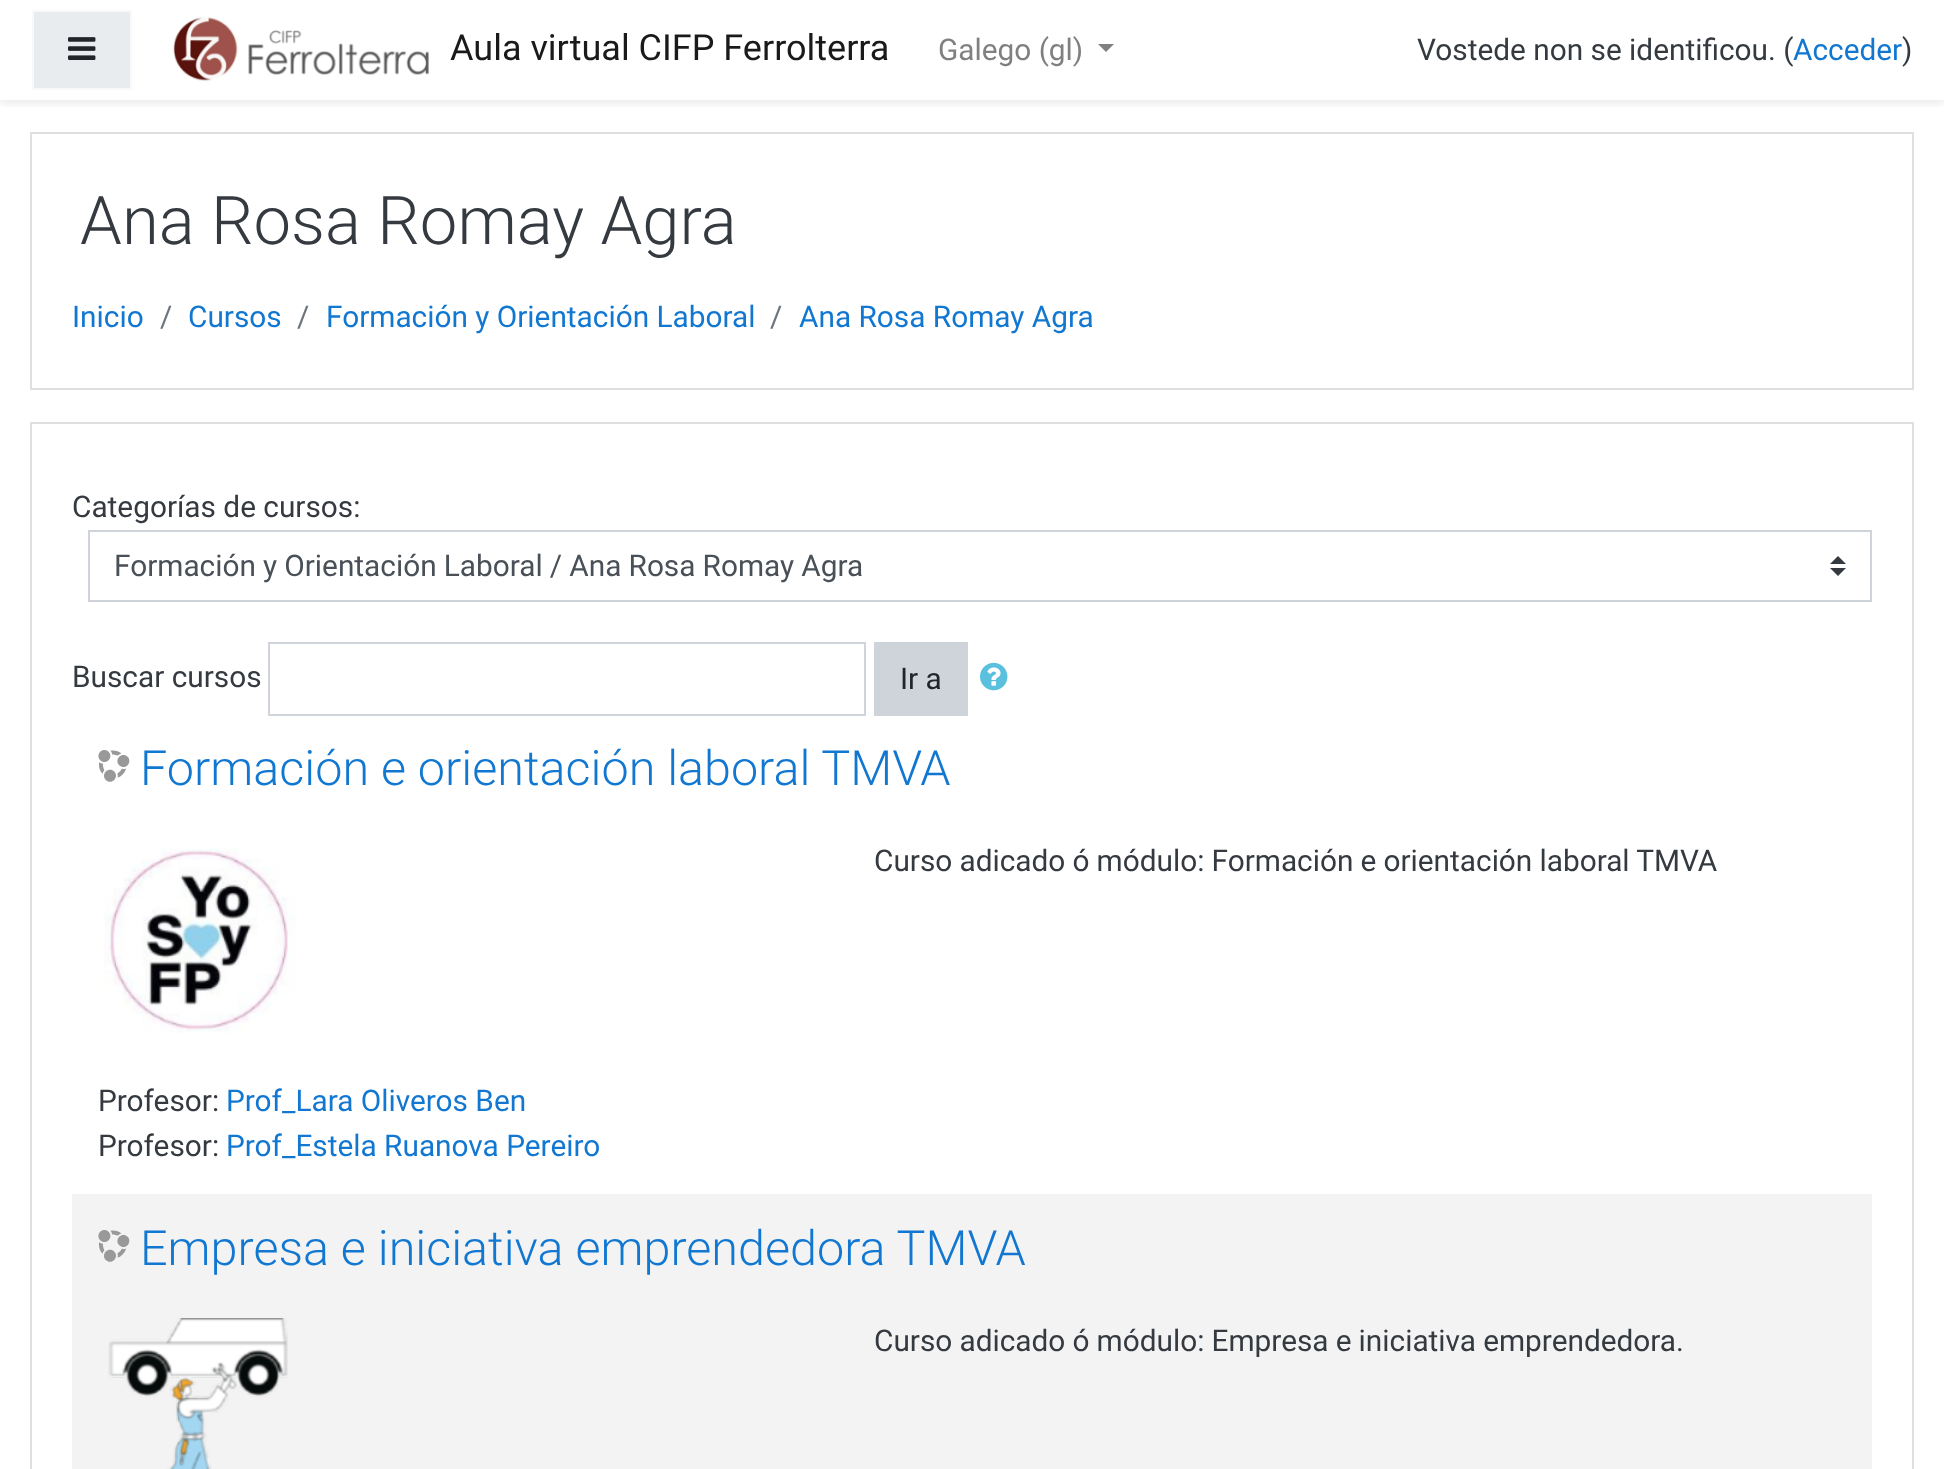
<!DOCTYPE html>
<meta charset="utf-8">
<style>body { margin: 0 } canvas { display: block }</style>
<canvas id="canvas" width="1944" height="1469"></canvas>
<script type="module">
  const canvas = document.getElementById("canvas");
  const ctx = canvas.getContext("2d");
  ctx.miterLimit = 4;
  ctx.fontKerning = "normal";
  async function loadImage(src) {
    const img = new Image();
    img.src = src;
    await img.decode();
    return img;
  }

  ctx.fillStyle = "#ffffff";
  ctx.fillRect(0, 0, 1944, 1469);
  ctx.save();
  ctx.beginPath();
  ctx.rect(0, 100, 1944, 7);
  ctx.clip();
  ctx.fillStyle = "rgba(0, 0, 0, 0.08)";
  ctx.filter = "blur(4px)";
  ctx.beginPath();
  ctx.rect(0, 4, 1944, 100);
  ctx.fill();
  ctx.filter = "none";
  ctx.restore();
  ctx.fillStyle = "#e9ecef";
  ctx.beginPath();
  ctx.rect(33, 11, 98, 78);
  ctx.fill();
  ctx.strokeStyle = "#f8f9fa";
  ctx.lineWidth = 2;
  ctx.stroke();
  ctx.drawImage(await loadImage("img1.png"), 68, 37, 28, 23);
  ctx.drawImage(await loadImage("img2.png"), 172, 16, 257, 66);
  ctx.font = "36px Roboto";
  ctx.fillStyle = "#1a1a1a";
  ctx.fillText("Aula virtual CIFP Ferrolterra", 450, 60);
  ctx.font = "29.8px Roboto";
  ctx.fillStyle = "#808080";
  ctx.fillText("Galego (gl)", 938, 60);
  ctx.beginPath();
  ctx.moveTo(1098, 44);
  ctx.lineTo(1114, 44);
  ctx.lineTo(1106, 52);
  ctx.closePath();
  ctx.fill();
  ctx.fillStyle = "#343a40";
  ctx.fillText("Vostede non se identificou. (", 1417, 60);
  ctx.fillStyle = "#1177d1";
  ctx.fillText("Acceder", 1793, 60);
  ctx.fillStyle = "#343a40";
  ctx.fillText(")", 1902, 60);
  ctx.strokeStyle = "#dfdfdf";
  ctx.strokeRect(31, 133, 1882, 256);
  ctx.font = "300 67px Roboto";
  ctx.fillText("Ana Rosa Romay Agra", 80, 244);
  ctx.font = "29.8px Roboto";
  ctx.fillStyle = "#1177d1";
  ctx.fillText("Inicio", 72, 327);
  ctx.fillStyle = "#6c757d";
  ctx.fillText("/", 160, 327);
  ctx.fillStyle = "#1177d1";
  ctx.fillText("Cursos", 188, 327);
  ctx.fillStyle = "#6c757d";
  ctx.fillText("/", 297, 327);
  ctx.fillStyle = "#1177d1";
  ctx.fillText("Formación y Orientación Laboral", 326, 327);
  ctx.fillStyle = "#6c757d";
  ctx.fillText("/", 770, 327);
  ctx.fillStyle = "#1177d1";
  ctx.fillText("Ana Rosa Romay Agra", 799, 327);
  ctx.strokeRect(31, 423, 1882, 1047);
  ctx.fillStyle = "#343a40";
  ctx.fillText("Categorías de cursos:", 72, 517);
  ctx.beginPath();
  ctx.moveTo(1838, 556);
  ctx.lineTo(1830, 564);
  ctx.lineTo(1846, 564);
  ctx.closePath();
  ctx.moveTo(1838, 576);
  ctx.lineTo(1830, 568);
  ctx.lineTo(1846, 568);
  ctx.closePath();
  ctx.fill();
  ctx.strokeStyle = "#ced4da";
  ctx.strokeRect(89, 531, 1782, 70);
  ctx.wordSpacing = "-0.25px";
  ctx.fillStyle = "#495057";
  ctx.fillText("Formación y Orientación Laboral / Ana Rosa Romay Agra", 114, 576);
  ctx.wordSpacing = "0px";
  ctx.fillStyle = "#343a40";
  ctx.fillText("Buscar cursos", 72, 687);
  ctx.strokeRect(269, 643, 596, 72);
  ctx.fillStyle = "#ced4da";
  ctx.fillRect(874, 642, 94, 74);
  ctx.fillStyle = "#212529";
  ctx.fillText("Ir a", 900, 689);
  ctx.drawImage(await loadImage("img3.png"), 980, 662, 28, 29);
  ctx.drawImage(await loadImage("img4.png"), 98, 750, 32, 32);
  ctx.font = "300 48.5px Roboto";
  ctx.fillStyle = "#1177d1";
  ctx.fillText("Formación e orientación laboral TMVA", 140, 785);
  ctx.drawImage(await loadImage("img5.png"), 104, 848, 192, 185);
  ctx.wordSpacing = "-0.25px";
  ctx.font = "29.8px Roboto";
  ctx.fillStyle = "#343a40";
  ctx.fillText("Curso adicado ó módulo: Formación e orientación laboral TMVA", 874, 871);
  ctx.wordSpacing = "0px";
  ctx.fillText("Profesor:", 98, 1111);
  ctx.fillStyle = "#1177d1";
  ctx.fillText("Prof_Lara Oliveros Ben", 226, 1111);
  ctx.fillStyle = "#343a40";
  ctx.fillText("Profesor:", 98, 1156);
  ctx.fillStyle = "#1177d1";
  ctx.fillText("Prof_Estela Ruanova Pereiro", 226, 1156);
  ctx.fillStyle = "#f3f3f3";
  ctx.fillRect(72, 1194, 1800, 275);
  ctx.drawImage(await loadImage("img6.png"), 98, 1230, 32, 32);
  ctx.font = "300 48.5px Roboto";
  ctx.fillStyle = "#1177d1";
  ctx.fillText("Empresa e iniciativa emprendedora TMVA", 140, 1265);
  ctx.drawImage(await loadImage("img7.png"), 108, 1318, 180, 151);
  ctx.wordSpacing = "-0.25px";
  ctx.font = "29.8px Roboto";
  ctx.fillStyle = "#343a40";
  ctx.fillText("Curso adicado ó módulo: Empresa e iniciativa emprendedora.", 874, 1351);
</script>
